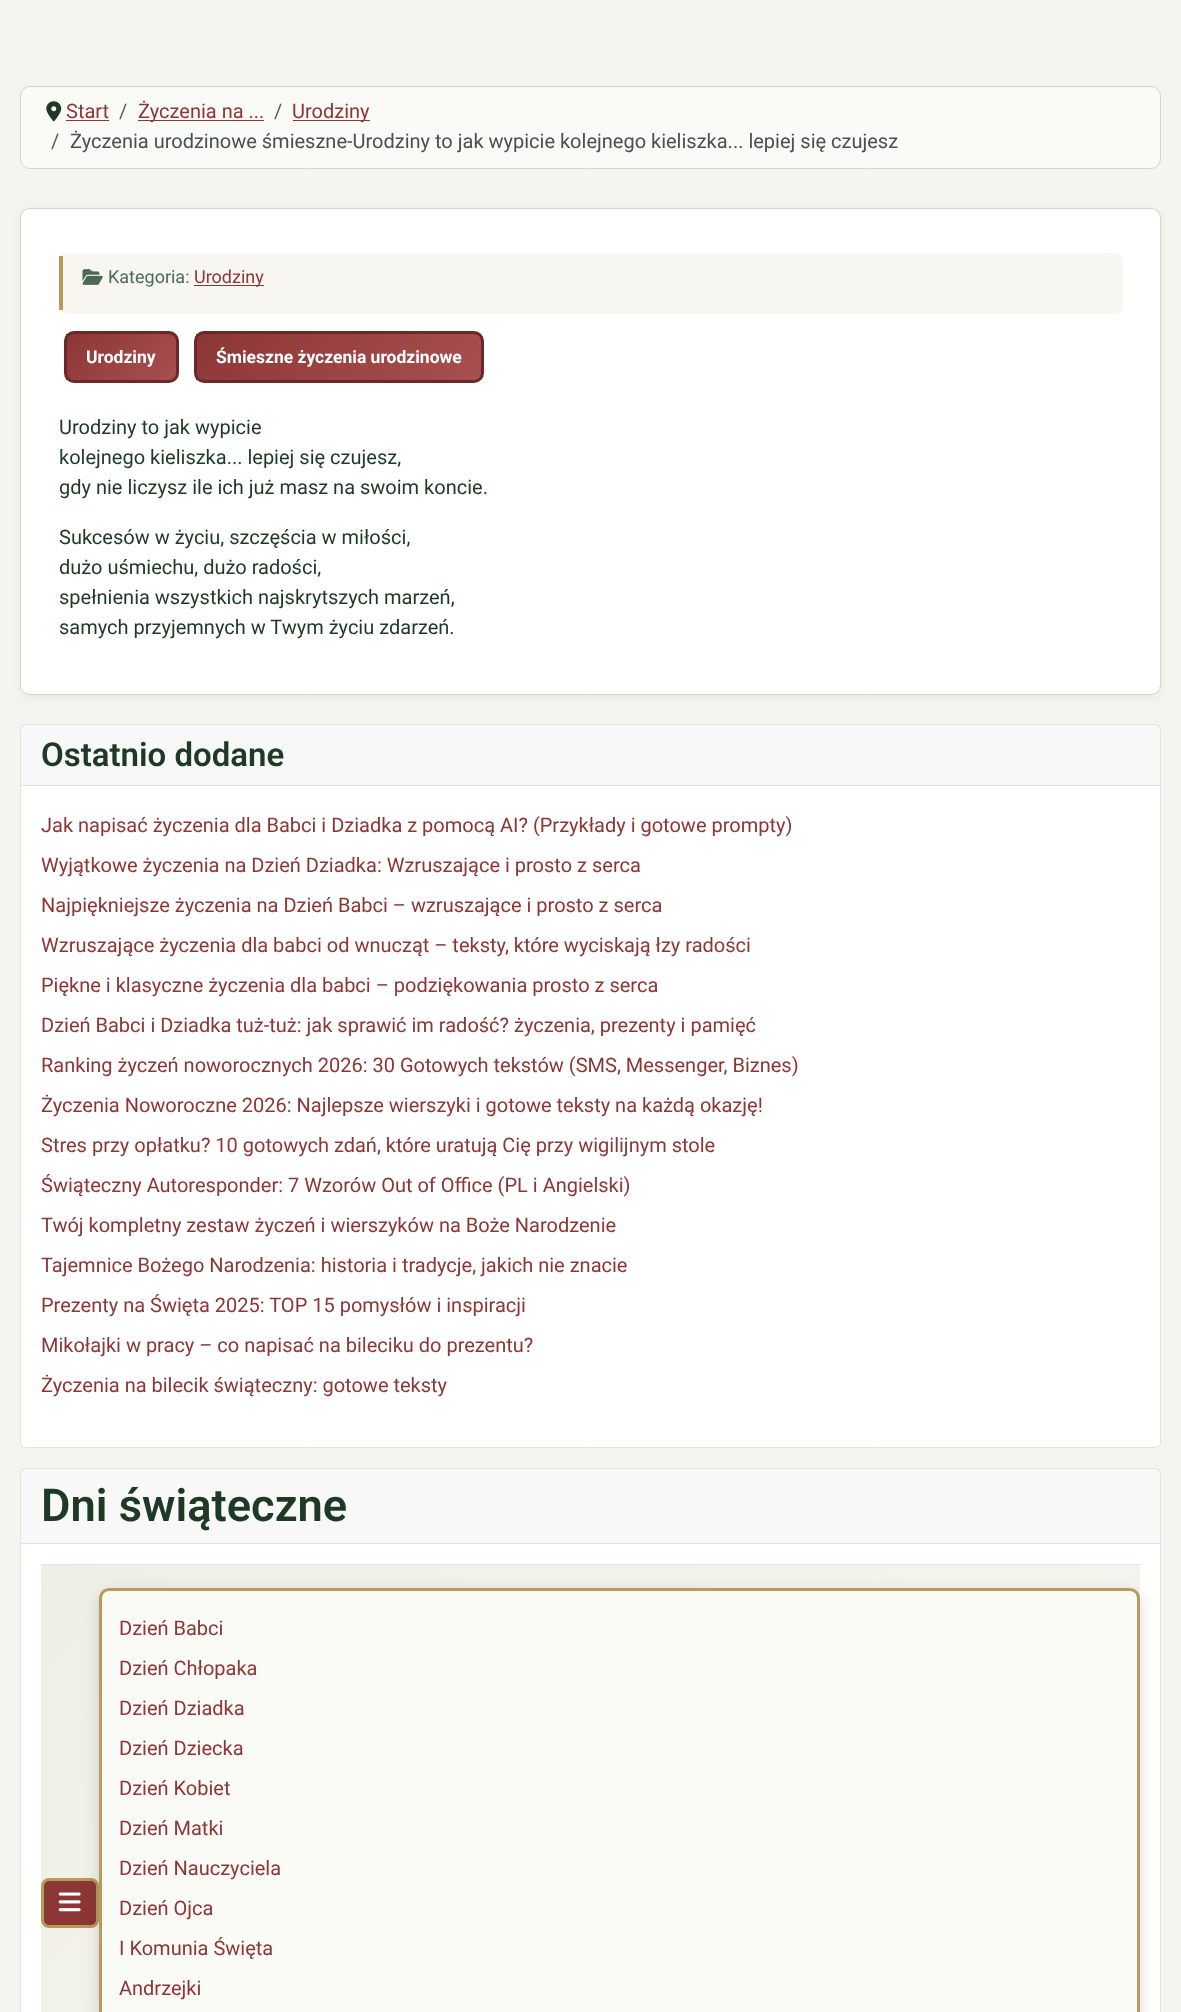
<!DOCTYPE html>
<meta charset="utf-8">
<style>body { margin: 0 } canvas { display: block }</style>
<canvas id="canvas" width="1181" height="2012"></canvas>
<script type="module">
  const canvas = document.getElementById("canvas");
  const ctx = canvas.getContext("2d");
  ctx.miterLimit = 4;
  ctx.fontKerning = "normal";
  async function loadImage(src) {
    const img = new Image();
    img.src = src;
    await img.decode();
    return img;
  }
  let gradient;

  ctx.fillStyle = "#f5f5f0";
  ctx.fillRect(0, 0, 1181, 2012);
  ctx.fillStyle = "#fafaf7";
  ctx.beginPath();
  ctx.roundRect(20.5, 86.5, 1140, 82, 9.5);
  ctx.fill();
  ctx.strokeStyle = "#d5d5cc";
  ctx.stroke();
  ctx.drawImage(await loadImage("img1.png"), 46, 101, 16, 21);
  ctx.font = "20px Roboto";
  ctx.fillStyle = "#8d3636";
  ctx.fillText("Start", 66, 118);
  ctx.fillRect(66, 120, 43, 1);
  ctx.fillStyle = "#585b5d";
  ctx.fillText("/", 119, 118);
  ctx.fillStyle = "#8d3636";
  ctx.fillRect(138, 120, 126, 1);
  ctx.fillText("Życzenia na ...", 138, 118);
  ctx.fillStyle = "#585b5d";
  ctx.fillText("/", 274, 118);
  ctx.fillStyle = "#8d3636";
  ctx.fillRect(293, 120, 77, 1);
  ctx.fillText("Urodziny", 292, 118);
  ctx.fillStyle = "#585b5d";
  ctx.fillText("/", 51, 148);
  ctx.fillStyle = "#484f56";
  ctx.fillText("Życzenia urodzinowe śmieszne-Urodziny to jak wypicie kolejnego kieliszka... lepiej się czujesz", 70, 148);
  ctx.fillStyle = "rgba(0, 0, 0, 0.05)";
  ctx.filter = "blur(4px)";
  ctx.beginPath();
  ctx.roundRect(20, 210, 1141, 488, 10);
  ctx.fill();
  ctx.filter = "none";
  ctx.fillStyle = "#ffffff";
  ctx.beginPath();
  ctx.roundRect(20.5, 208.5, 1140, 486, 9.5);
  ctx.fill();
  ctx.stroke();
  ctx.fillStyle = "#f8f6f0";
  ctx.beginPath();
  ctx.roundRect(59, 253, 1064, 61, 8);
  ctx.fill();
  ctx.fillStyle = "#b79b5a";
  ctx.fillRect(59, 256, 4, 54);
  ctx.drawImage(await loadImage("img2.png"), 82, 269, 21, 16);
  ctx.font = "18px Roboto";
  ctx.fillStyle = "#4a6b52";
  ctx.fillText("Kategoria:", 108, 283);
  ctx.fillStyle = "#8d3636";
  ctx.fillRect(194, 285, 70, 1);
  ctx.fillText("Urodziny", 194, 283);
  gradient = ctx.createLinearGradient(82, 318, 160, 396);
  gradient.addColorStop(0, "#8d3636");
  gradient.addColorStop(1, "#a85050");
  ctx.fillStyle = gradient;
  ctx.fillRect(66, 334, 110, 46);
  ctx.beginPath();
  ctx.roundRect(65.5, 332.5, 112, 49, 8.5);
  ctx.strokeStyle = "#6b2828";
  ctx.lineWidth = 3;
  ctx.stroke();
  ctx.font = "bold 17.5px Roboto";
  ctx.fillStyle = "#ffffff";
  ctx.fillText("Urodziny", 86, 363);
  gradient = ctx.createLinearGradient(256, 274, 422, 440);
  gradient.addColorStop(0, "#8d3636");
  gradient.addColorStop(1, "#a85050");
  ctx.fillStyle = gradient;
  ctx.fillRect(196, 334, 285, 46);
  ctx.beginPath();
  ctx.roundRect(195.5, 332.5, 287, 49, 8.5);
  ctx.stroke();
  ctx.fillStyle = "#ffffff";
  ctx.fillText("Śmieszne życzenia urodzinowe", 216, 363);
  ctx.font = "20px Roboto";
  ctx.fillStyle = "#1e3a24";
  ctx.fillText("Urodziny to jak wypicie", 59, 434);
  ctx.fillText("kolejnego kieliszka... lepiej się czujesz,", 59, 464);
  ctx.fillText("gdy nie liczysz ile ich już masz na swoim koncie.", 59, 494);
  ctx.fillText("Sukcesów w życiu, szczęścia w miłości,", 59, 544);
  ctx.fillText("dużo uśmiechu, dużo radości,", 59, 574);
  ctx.fillText("spełnienia wszystkich najskrytszych marzeń,", 59, 604);
  ctx.fillText("samych przyjemnych w Twym życiu zdarzeń.", 59, 634);
  ctx.fillStyle = "#ffffff";
  ctx.beginPath();
  ctx.roundRect(20.5, 724.5, 1140, 723, 4.5);
  ctx.fill();
  ctx.strokeStyle = "#dfe3e7";
  ctx.lineWidth = 1;
  ctx.stroke();
  ctx.fillStyle = "rgba(34, 38, 42, 0.03)";
  ctx.fillRect(21, 725, 1139, 60);
  ctx.fillStyle = "#dfe3e7";
  ctx.fillRect(21, 785, 1139, 1);
  ctx.font = "600 33px Roboto";
  ctx.fillStyle = "#1e3a24";
  ctx.fillText("Ostatnio dodane", 41, 766);
  ctx.font = "20px Roboto";
  ctx.fillStyle = "#8d3636";
  ctx.fillText("Jak napisać życzenia dla Babci i Dziadka z pomocą AI? (Przykłady i gotowe prompty)", 41, 832);
  ctx.fillText("Wyjątkowe życzenia na Dzień Dziadka: Wzruszające i prosto z serca", 41, 872);
  ctx.fillText("Najpiękniejsze życzenia na Dzień Babci – wzruszające i prosto z serca", 41, 912);
  ctx.fillText("Wzruszające życzenia dla babci od wnucząt – teksty, które wyciskają łzy radości", 41, 952);
  ctx.fillText("Piękne i klasyczne życzenia dla babci – podziękowania prosto z serca", 41, 992);
  ctx.fillText("Dzień Babci i Dziadka tuż-tuż: jak sprawić im radość? życzenia, prezenty i pamięć", 41, 1032);
  ctx.fillText("Ranking życzeń noworocznych 2026: 30 Gotowych tekstów (SMS, Messenger, Biznes)", 41, 1072);
  ctx.fillText("Życzenia Noworoczne 2026: Najlepsze wierszyki i gotowe teksty na każdą okazję!", 41, 1112);
  ctx.fillText("Stres przy opłatku? 10 gotowych zdań, które uratują Cię przy wigilijnym stole", 41, 1152);
  ctx.fillText("Świąteczny Autoresponder: 7 Wzorów Out of Office (PL i Angielski)", 41, 1192);
  ctx.fillText("Twój kompletny zestaw życzeń i wierszyków na Boże Narodzenie", 41, 1232);
  ctx.fillText("Tajemnice Bożego Narodzenia: historia i tradycje, jakich nie znacie", 41, 1272);
  ctx.fillText("Prezenty na Święta 2025: TOP 15 pomysłów i inspiracji", 41, 1312);
  ctx.fillText("Mikołajki w pracy – co napisać na bileciku do prezentu?", 41, 1352);
  ctx.fillText("Życzenia na bilecik świąteczny: gotowe teksty", 41, 1392);
  ctx.fillStyle = "#ffffff";
  ctx.beginPath();
  ctx.roundRect(20.5, 1468.5, 1140, 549, 4.5);
  ctx.fill();
  ctx.stroke();
  ctx.fillStyle = "rgba(34, 38, 42, 0.03)";
  ctx.fillRect(21, 1469, 1139, 74);
  ctx.fillStyle = "#dfe3e7";
  ctx.fillRect(21, 1543, 1139, 1);
  ctx.font = "600 45.25px Roboto";
  ctx.fillStyle = "#1e3a24";
  ctx.fillText("Dni świąteczne", 41, 1521);
  gradient = ctx.createLinearGradient(147, 1459, 1034, 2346);
  gradient.addColorStop(0, "#efefe8");
  gradient.addColorStop(1, "#f8f6f0");
  ctx.fillStyle = gradient;
  ctx.fillRect(41, 1565, 1099, 447);
  ctx.fillStyle = "#e5e5dc";
  ctx.fillRect(41, 1564, 1099, 1);
  ctx.fillStyle = "#8d3636";
  ctx.beginPath();
  ctx.roundRect(42.5, 1879.5, 55, 47, 6.5);
  ctx.fill();
  ctx.strokeStyle = "#b79b5a";
  ctx.lineWidth = 3;
  ctx.stroke();
  ctx.drawImage(await loadImage("img3.png"), 58, 1892, 23, 20);
  ctx.fillStyle = "rgba(0, 0, 0, 0.15)";
  ctx.filter = "blur(7.5px)";
  ctx.beginPath();
  ctx.roundRect(99, 1593, 1041, 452, 10);
  ctx.fill();
  ctx.filter = "none";
  ctx.fillStyle = "#fafaf7";
  ctx.beginPath();
  ctx.roundRect(100.5, 1589.5, 1038, 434, 8.5);
  ctx.fill();
  ctx.stroke();
  ctx.font = "20px Roboto";
  ctx.fillStyle = "#8d3636";
  ctx.fillText("Dzień Babci", 119, 1635);
  ctx.fillText("Dzień Chłopaka", 119, 1675);
  ctx.fillText("Dzień Dziadka", 119, 1715);
  ctx.fillText("Dzień Dziecka", 119, 1755);
  ctx.fillText("Dzień Kobiet", 119, 1795);
  ctx.fillText("Dzień Matki", 119, 1835);
  ctx.fillText("Dzień Nauczyciela", 119, 1875);
  ctx.fillText("Dzień Ojca", 119, 1915);
  ctx.fillText("I Komunia Święta", 119, 1955);
  ctx.fillText("Andrzejki", 119, 1995);
</script>
